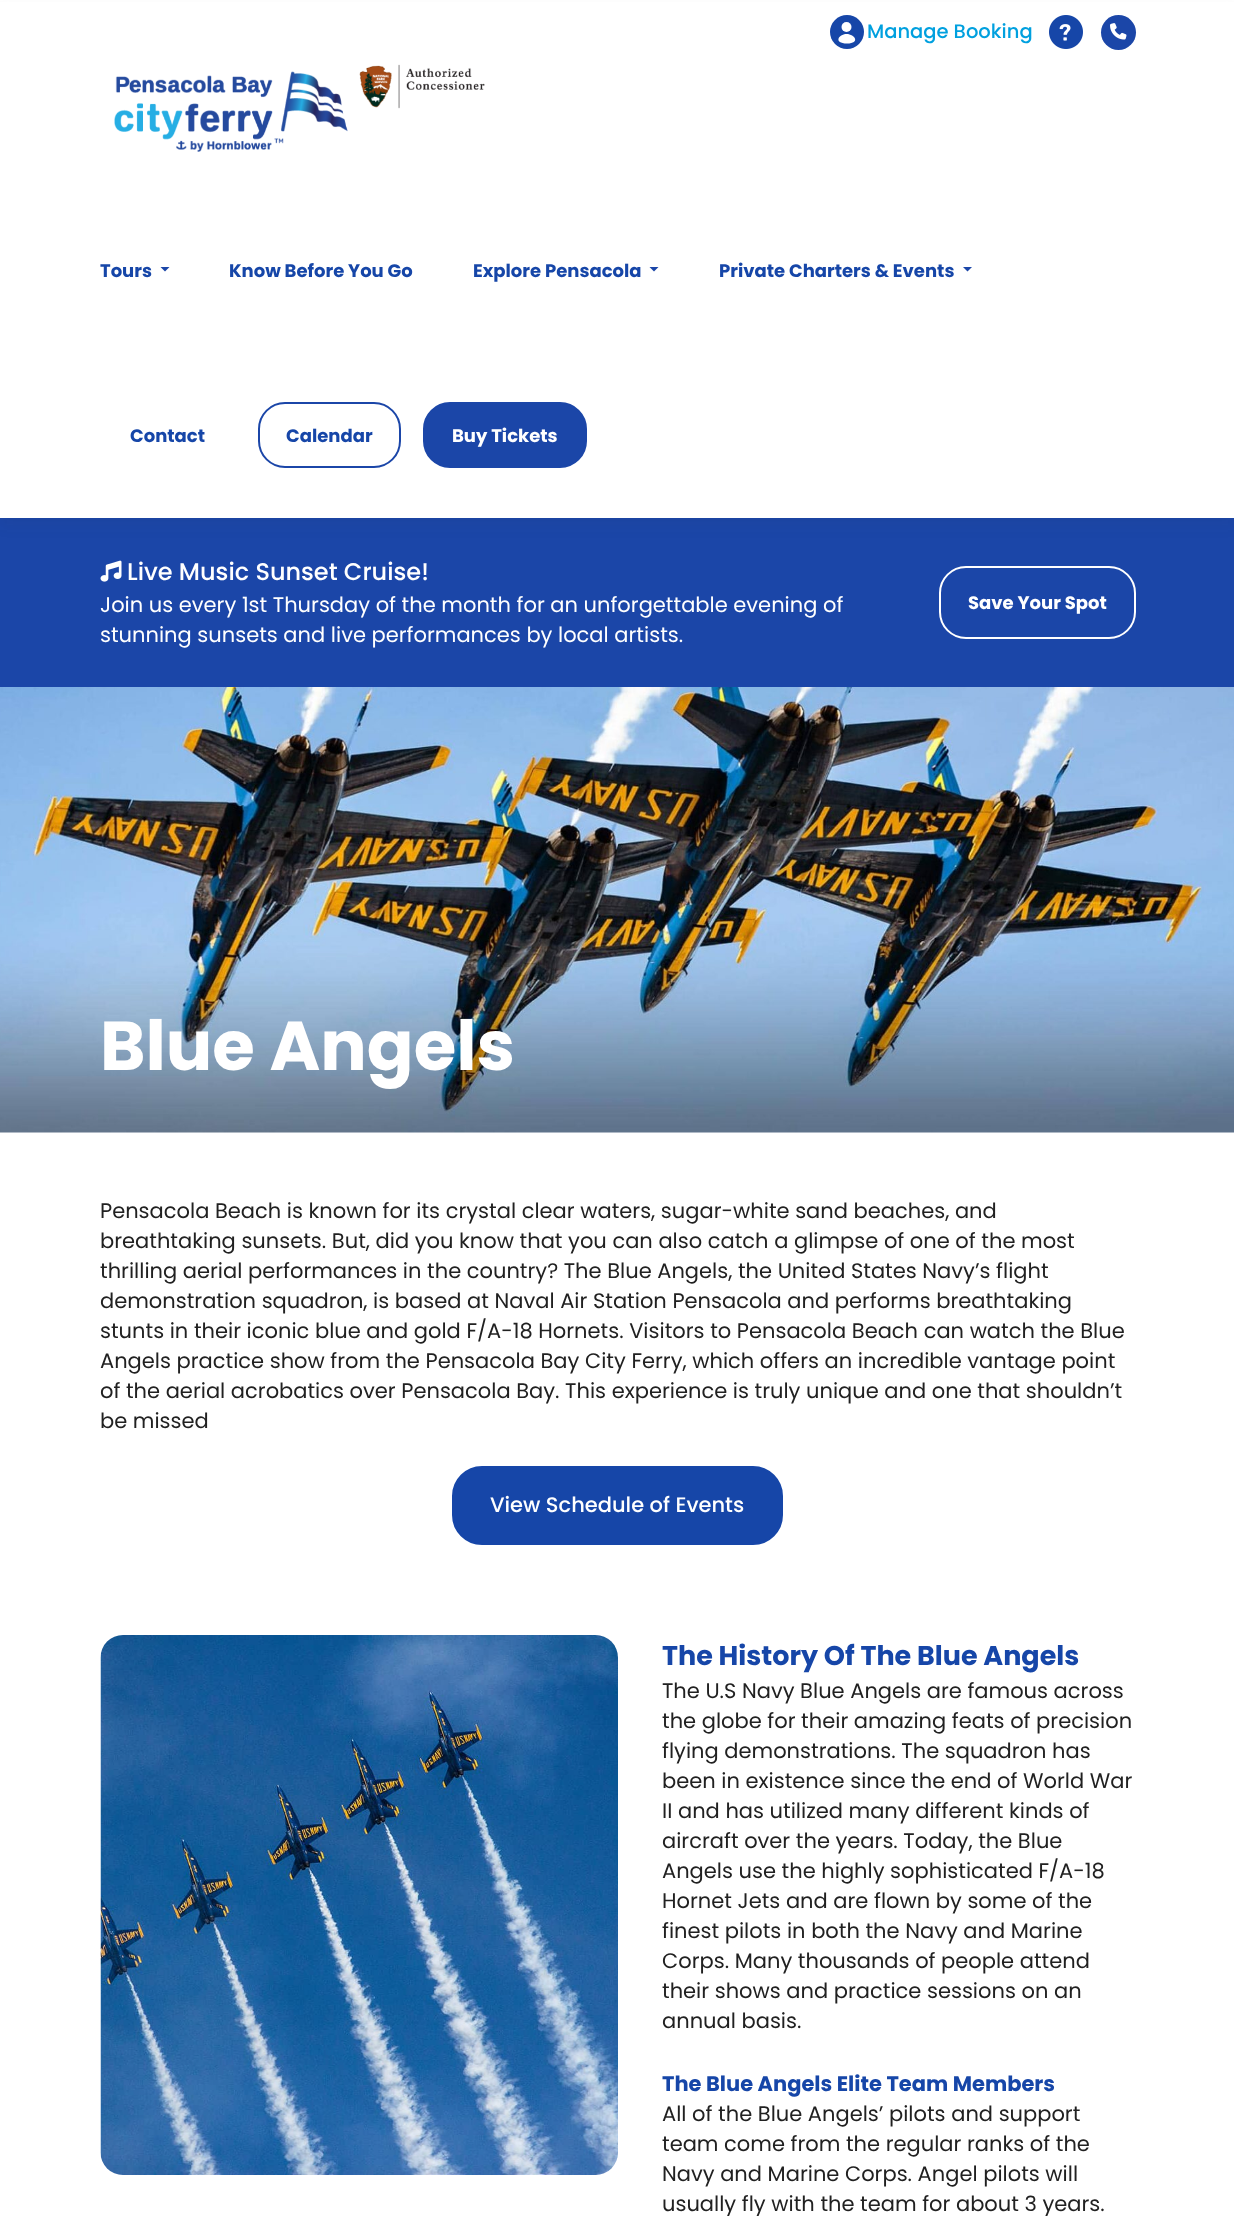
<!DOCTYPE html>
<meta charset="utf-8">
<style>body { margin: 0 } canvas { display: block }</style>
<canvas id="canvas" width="1234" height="2216"></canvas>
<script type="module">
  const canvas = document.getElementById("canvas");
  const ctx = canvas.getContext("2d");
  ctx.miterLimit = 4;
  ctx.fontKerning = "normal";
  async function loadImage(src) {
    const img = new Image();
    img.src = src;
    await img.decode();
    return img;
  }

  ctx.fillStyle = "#ffffff";
  ctx.fillRect(0, 0, 1234, 2216);
  ctx.fillStyle = "#1b46a8";
  ctx.fillRect(0, 518, 1234, 169);
  ctx.fillStyle = "rgba(50, 50, 50, 0.06)";
  ctx.filter = "blur(7.5px)";
  ctx.beginPath();
  ctx.rect(0, 8, 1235, 517);
  ctx.fill();
  ctx.filter = "none";
  ctx.fillStyle = "#ffffff";
  ctx.fillRect(0, 2, 1234, 516);
  ctx.fillStyle = "#1646a8";
  ctx.beginPath();
  ctx.arc(847, 32, 17, 0, Math.PI * 2);
  ctx.fill();
  ctx.fillStyle = "#ffffff";
  ctx.beginPath();
  ctx.arc(846.5, 27, 5, 0, Math.PI * 2);
  ctx.fill();
  ctx.beginPath();
  ctx.moveTo(846.5, 34);
  ctx.bezierCurveTo(838.5, 34, 833, 43.5, 847, 43.5);
  ctx.bezierCurveTo(860.5, 43.5, 855, 34, 846.5, 34);
  ctx.closePath();
  ctx.fill();
  ctx.font = "500 19.5px Poppins";
  ctx.fillStyle = "#00a0df";
  ctx.fillText("Manage Booking", 867, 38);
  ctx.drawImage(await loadImage("img1.png"), 1049, 15, 34, 34);
  ctx.fillStyle = "#1b46a8";
  ctx.beginPath();
  ctx.arc(1118.5, 32.5, 17.5, 0, Math.PI * 2);
  ctx.fill();
  ctx.drawImage(await loadImage("img2.png"), 1110, 23, 17, 17);
  ctx.font = "bold 18px Poppins";
  ctx.fillStyle = "#1646a8";
  ctx.fillText("Tours", 100, 277);
  ctx.fillStyle = "#1b46a8";
  ctx.beginPath();
  ctx.moveTo(160.5, 267);
  ctx.lineTo(169.5, 267);
  ctx.lineTo(165, 271.5);
  ctx.closePath();
  ctx.fill();
  ctx.fillStyle = "#1646a8";
  ctx.fillText("Know Before You Go", 229, 277);
  ctx.fillText("Explore Pensacola", 473, 277);
  ctx.fillStyle = "#1b46a8";
  ctx.beginPath();
  ctx.moveTo(649.5, 267);
  ctx.lineTo(658.5, 267);
  ctx.lineTo(654, 271.5);
  ctx.closePath();
  ctx.fill();
  ctx.fillStyle = "#1646a8";
  ctx.fillText("Private Charters & Events", 719, 277);
  ctx.fillStyle = "#1b46a8";
  ctx.beginPath();
  ctx.moveTo(963, 267);
  ctx.lineTo(972, 267);
  ctx.lineTo(967.5, 271.5);
  ctx.closePath();
  ctx.fill();
  ctx.fillStyle = "#1646a8";
  ctx.fillText("Contact", 130, 442);
  ctx.beginPath();
  ctx.roundRect(259, 403, 141, 64, 26);
  ctx.strokeStyle = "#1b46a8";
  ctx.lineWidth = 2;
  ctx.stroke();
  ctx.fillText("Calendar", 286, 442);
  ctx.fillStyle = "#1b46a8";
  ctx.beginPath();
  ctx.roundRect(424, 403, 162, 64, 26);
  ctx.fill();
  ctx.stroke();
  ctx.fillStyle = "#ffffff";
  ctx.fillText("Buy Tickets", 452, 442);
  ctx.drawImage(await loadImage("img3.png"), 359, 64, 126, 45);
  ctx.drawImage(await loadImage("img4.png"), 114, 71, 234, 81);
  ctx.drawImage(await loadImage("img5.png"), 100, 560, 22, 22);
  ctx.font = "500 24px Poppins";
  ctx.fillText("Live Music Sunset Cruise!", 127, 580);
  ctx.font = "21px Poppins";
  ctx.fillText("Join us every 1st Thursday of the month for an unforgettable evening of", 100, 612);
  ctx.fillText("stunning sunsets and live performances by local artists.", 100, 642);
  ctx.beginPath();
  ctx.roundRect(940, 567, 195, 71, 26);
  ctx.strokeStyle = "#ffffff";
  ctx.stroke();
  ctx.font = "bold 18px Poppins";
  ctx.fillText("Save Your Spot", 968, 609);
  ctx.drawImage(await loadImage("img6.png"), 0, 687, 1234, 446);
  ctx.font = "bold 69px Poppins";
  ctx.fillText("Blue Angels", 100, 1070);
  ctx.font = "21px Poppins";
  ctx.fillStyle = "#212121";
  ctx.fillText("Pensacola Beach is known for its crystal clear waters, sugar-white sand beaches, and", 100, 1218);
  ctx.fillText("breathtaking sunsets. But, did you know that you can also catch a glimpse of one of the most", 100, 1248);
  ctx.fillText("thrilling aerial performances in the country? The Blue Angels, the United States Navy’s flight", 100, 1278);
  ctx.fillText("demonstration squadron, is based at Naval Air Station Pensacola and performs breathtaking", 100, 1308);
  ctx.fillText("stunts in their iconic blue and gold F/A-18 Hornets. Visitors to Pensacola Beach can watch the Blue", 100, 1338);
  ctx.fillText("Angels practice show from the Pensacola Bay City Ferry, which offers an incredible vantage point", 100, 1368);
  ctx.fillText("of the aerial acrobatics over Pensacola Bay. This experience is truly unique and one that shouldn’t", 100, 1398);
  ctx.fillText("be missed", 100, 1428);
  ctx.fillStyle = "#1646a8";
  ctx.beginPath();
  ctx.roundRect(453, 1467, 329, 77, 29);
  ctx.fill();
  ctx.strokeStyle = "#1646a8";
  ctx.stroke();
  ctx.font = "500 21px Poppins";
  ctx.fillStyle = "#ffffff";
  ctx.fillText("View Schedule of Events", 490, 1512);
  ctx.drawImage(await loadImage("img7.png"), 100, 1635, 518, 540);
  ctx.font = "bold 27px Poppins";
  ctx.fillStyle = "#1646a8";
  ctx.fillText("The History Of The Blue Angels", 662, 1665);
  ctx.font = "21px Poppins";
  ctx.fillStyle = "#212121";
  ctx.fillText("The U.S Navy Blue Angels are famous across", 662, 1698);
  ctx.fillText("the globe for their amazing feats of precision", 662, 1728);
  ctx.fillText("flying demonstrations. The squadron has", 662, 1758);
  ctx.fillText("been in existence since the end of World War", 662, 1788);
  ctx.fillText("II and has utilized many different kinds of", 662, 1818);
  ctx.fillText("aircraft over the years. Today, the Blue", 662, 1848);
  ctx.fillText("Angels use the highly sophisticated F/A-18", 662, 1878);
  ctx.fillText("Hornet Jets and are flown by some of the", 662, 1908);
  ctx.fillText("finest pilots in both the Navy and Marine", 662, 1938);
  ctx.fillText("Corps. Many thousands of people attend", 662, 1968);
  ctx.fillText("their shows and practice sessions on an", 662, 1998);
  ctx.fillText("annual basis.", 662, 2028);
  ctx.font = "bold 21px Poppins";
  ctx.fillStyle = "#1646a8";
  ctx.fillText("The Blue Angels Elite Team Members", 662, 2091);
  ctx.font = "21px Poppins";
  ctx.fillStyle = "#212121";
  ctx.fillText("All of the Blue Angels’ pilots and support", 662, 2121);
  ctx.fillText("team come from the regular ranks of the", 662, 2151);
  ctx.fillText("Navy and Marine Corps. Angel pilots will", 662, 2181);
  ctx.fillText("usually fly with the team for about 3 years.", 662, 2211);
</script>
